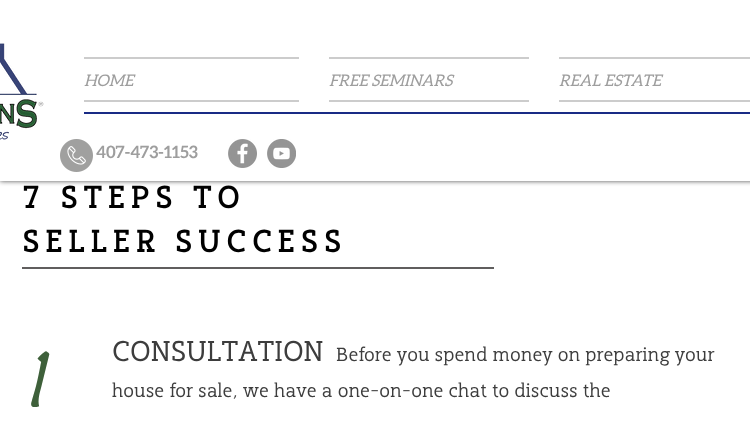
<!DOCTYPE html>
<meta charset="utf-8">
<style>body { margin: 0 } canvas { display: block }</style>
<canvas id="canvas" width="750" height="427"></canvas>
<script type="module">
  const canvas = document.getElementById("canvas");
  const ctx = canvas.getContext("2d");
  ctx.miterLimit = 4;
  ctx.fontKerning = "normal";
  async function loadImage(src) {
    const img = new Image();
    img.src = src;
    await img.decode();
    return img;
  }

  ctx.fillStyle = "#ffffff";
  ctx.fillRect(0, 0, 750, 427);
  ctx.fillStyle = "rgba(0, 0, 0, 0.7)";
  ctx.filter = "blur(2.5px)";
  ctx.beginPath();
  ctx.rect(0, 0, 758, 181);
  ctx.fill();
  ctx.filter = "none";
  ctx.fillStyle = "#ffffff";
  ctx.fillRect(0, 0, 750, 181);
  ctx.drawImage(await loadImage("img1.png"), 0, 43, 44, 97);
  ctx.fillStyle = "#cccccc";
  ctx.fillRect(84, 57, 215, 2);
  ctx.fillRect(84, 100, 215, 2);
  ctx.font = "italic 16px Aleo";
  ctx.fillStyle = "#9e9e9e";
  ctx.fillText("HOME", 84, 86);
  ctx.fillStyle = "#cccccc";
  ctx.fillRect(329, 57, 200, 2);
  ctx.fillRect(329, 100, 200, 2);
  ctx.fillStyle = "#9e9e9e";
  ctx.fillText("FREE SEMINARS", 329, 86);
  ctx.fillStyle = "#cccccc";
  ctx.fillRect(559, 57, 191, 2);
  ctx.fillRect(559, 100, 191, 2);
  ctx.fillStyle = "#9e9e9e";
  ctx.fillText("REAL ESTATE", 559, 86);
  ctx.fillStyle = "#192b85";
  ctx.fillRect(84, 112, 666, 2);
  ctx.drawImage(await loadImage("img2.png"), 60, 139, 33, 33);
  ctx.font = "bold 17px Aleo";
  ctx.fillStyle = "#9e9e9e";
  ctx.fillText("407-473-1153", 96, 158);
  ctx.drawImage(await loadImage("img3.png"), 228, 139, 29, 29);
  ctx.drawImage(await loadImage("img4.png"), 267, 139, 29, 29);
  ctx.letterSpacing = "6.4px";
  ctx.font = "bold 32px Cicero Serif";
  ctx.fillStyle = "#000000";
  ctx.fillText("7 STEPS TO", 22, 208);
  ctx.fillText("SELLER SUCCESS", 22, 252);
  ctx.fillStyle = "#605e5e";
  ctx.fillRect(22, 267, 472, 2);
  ctx.letterSpacing = "0px";
  ctx.font = "75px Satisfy";
  ctx.fillStyle = "#3e603a";
  ctx.fillText("1", 30, 406);
  ctx.font = "30px Cicero Serif";
  ctx.fillStyle = "#3d3d3d";
  ctx.fillText("CONSULTATION", 112, 361);
  ctx.font = "20px Cicero Serif";
  ctx.fillText("Before you spend money on preparing your", 336, 361);
  ctx.fillText("house for sale, we have a one-on-one chat to discuss the", 112, 397);
</script>
